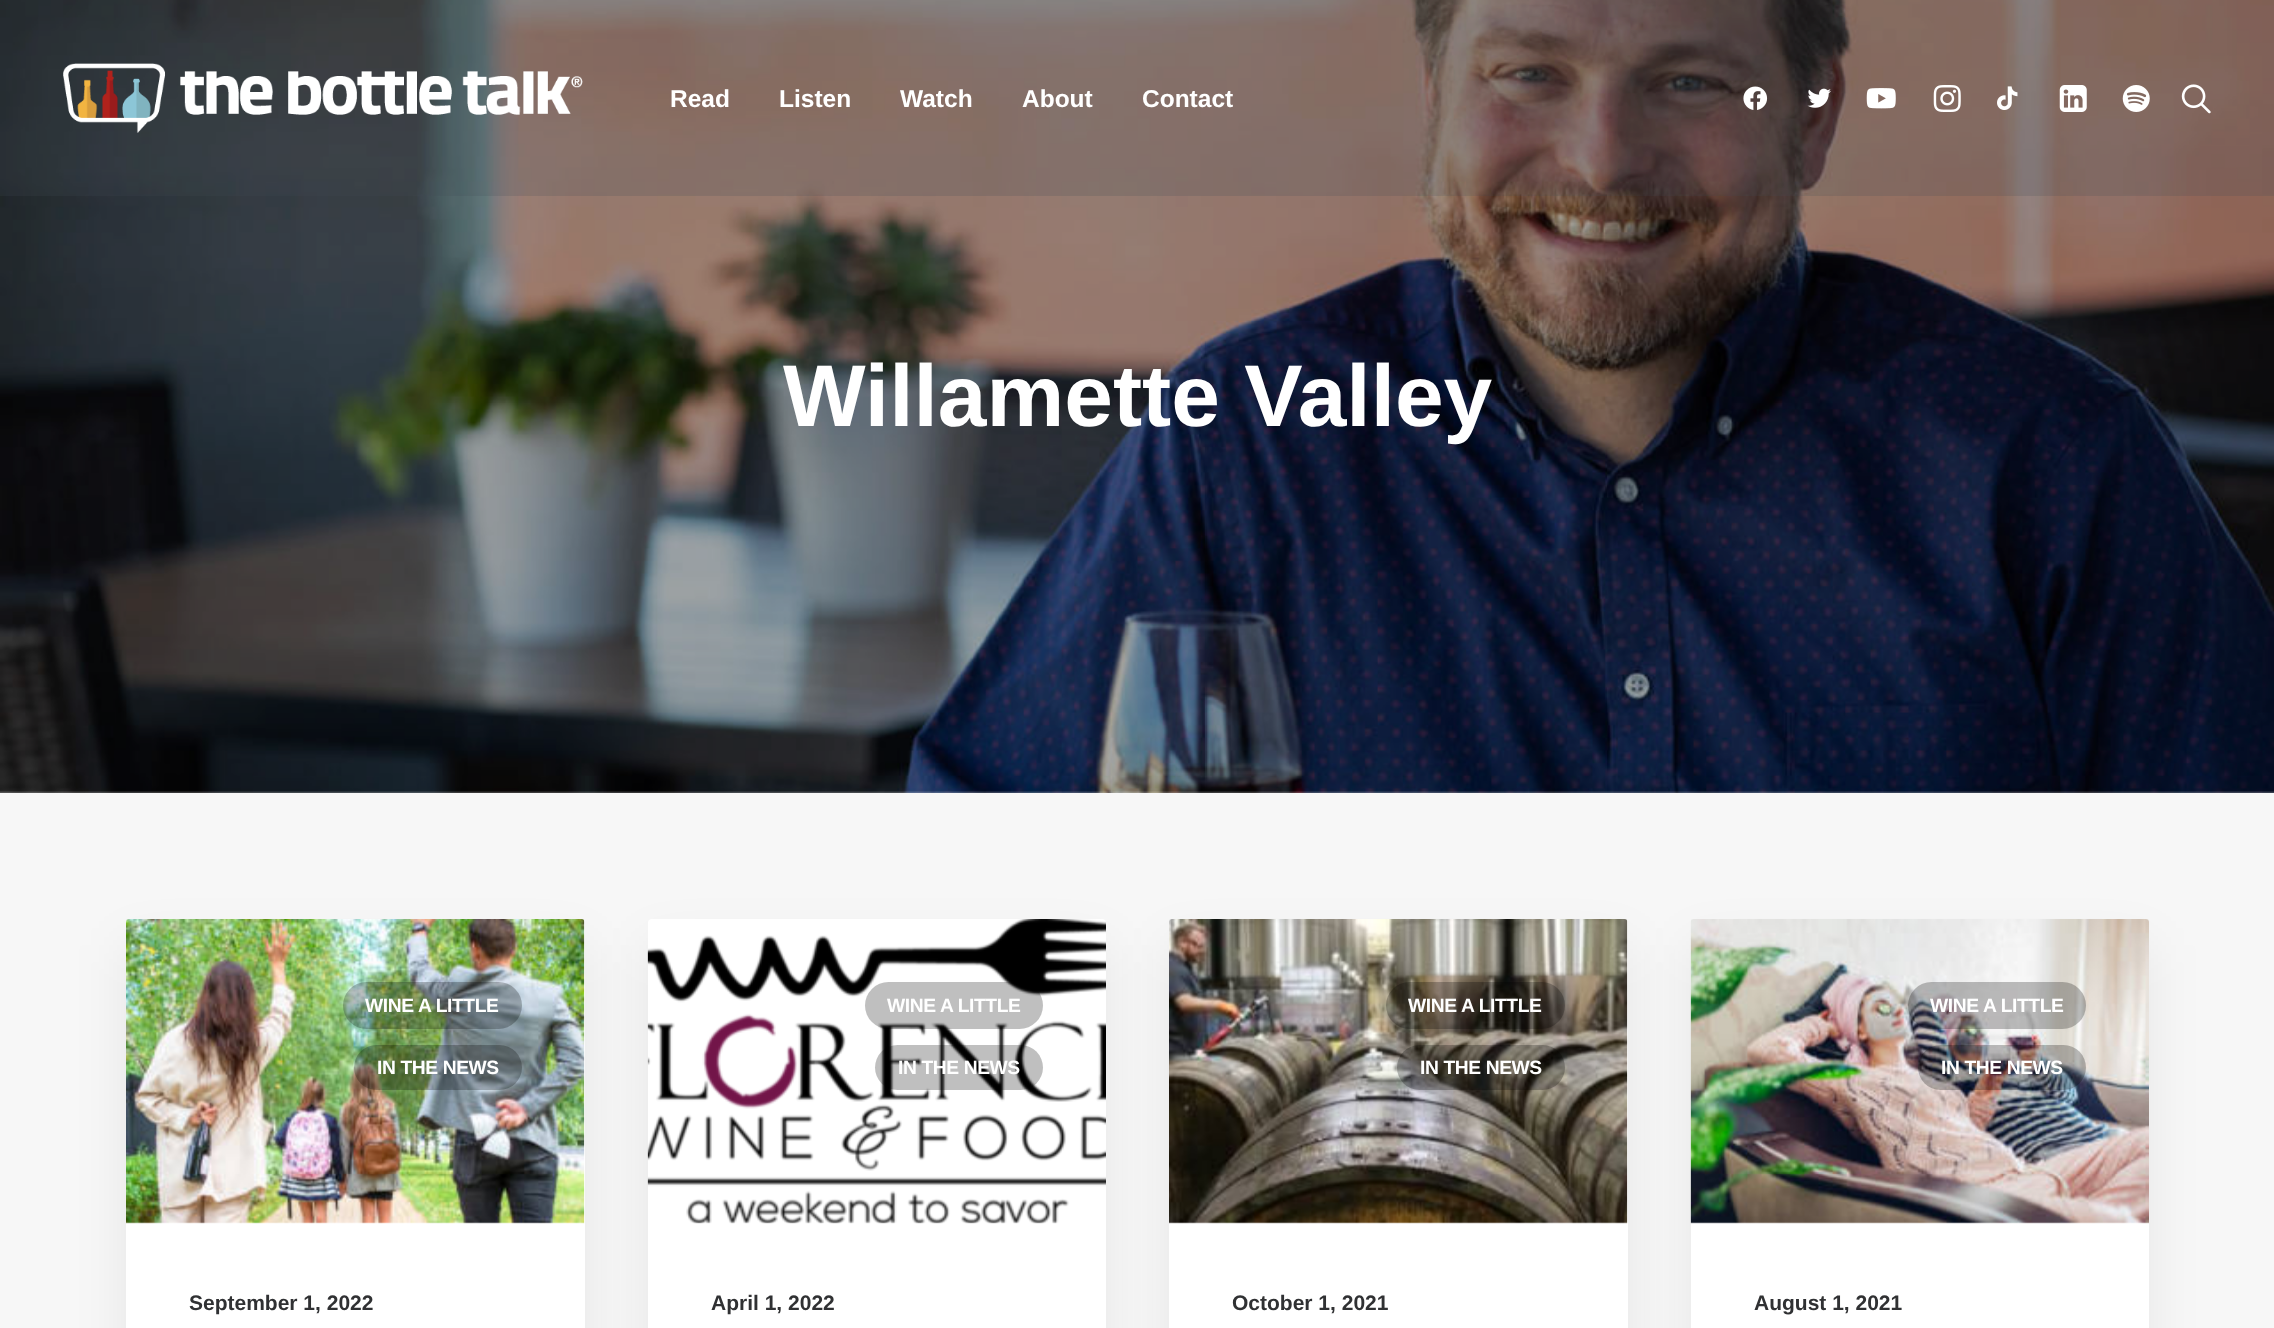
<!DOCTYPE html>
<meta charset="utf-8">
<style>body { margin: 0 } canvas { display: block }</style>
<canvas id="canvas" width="2274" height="1328"></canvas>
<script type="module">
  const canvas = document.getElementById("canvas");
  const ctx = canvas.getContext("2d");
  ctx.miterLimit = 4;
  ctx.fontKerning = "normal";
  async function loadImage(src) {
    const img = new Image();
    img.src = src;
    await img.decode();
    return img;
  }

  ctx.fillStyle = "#ffffff";
  ctx.fillRect(0, 0, 2274, 1328);
  ctx.drawImage(await loadImage("img10.png"), 0, 0, 2274, 793);
  ctx.fillStyle = "rgba(70, 78, 89, 0.1)";
  ctx.fillRect(0, 0, 2274, 196);
  ctx.fillRect(0, 0, 2274, 196);
  ctx.drawImage(await loadImage("img1.png"), 63, 63, 520, 70);
  ctx.font = "bold 24.5px Liberation Sans";
  ctx.fillStyle = "#ffffff";
  ctx.fillText("Read", 670, 107);
  ctx.fillText("Listen", 779, 107);
  ctx.fillText("Watch", 900, 107);
  ctx.fillText("About", 1022, 107);
  ctx.fillText("Contact", 1142, 107);
  ctx.drawImage(await loadImage("img2.png"), 1743, 86, 25, 24);
  ctx.drawImage(await loadImage("img3.png"), 1807, 88, 24, 20);
  ctx.drawImage(await loadImage("img4.png"), 1866, 88, 30, 21);
  ctx.drawImage(await loadImage("img5.png"), 1933, 85, 28, 27);
  ctx.drawImage(await loadImage("img6.png"), 1997, 86, 21, 24);
  ctx.drawImage(await loadImage("img7.png"), 2059, 85, 28, 27);
  ctx.drawImage(await loadImage("img8.png"), 2122, 85, 28, 27);
  ctx.drawImage(await loadImage("img9.png"), 2181, 84, 30, 30);
  ctx.font = "bold 87.5px Liberation Sans";
  ctx.fillText("Willamette Valley", 783, 426);
  ctx.fillStyle = "#f7f7f7";
  ctx.fillRect(0, 793, 2274, 535);
  ctx.fillStyle = "rgba(0, 0, 0, 0.07)";
  ctx.filter = "blur(26px)";
  ctx.beginPath();
  ctx.roundRect(126, 945, 459, 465, 4);
  ctx.fill();
  ctx.filter = "none";
  ctx.fillStyle = "#ffffff";
  ctx.beginPath();
  ctx.roundRect(126, 919, 459, 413, 4);
  ctx.fill();
  ctx.drawImage(await loadImage("img11.png"), 126, 919, 459, 305);
  ctx.fillStyle = "rgba(0, 0, 0, 0.25)";
  ctx.beginPath();
  ctx.roundRect(343, 982, 179, 47, 23.5);
  ctx.fill();
  ctx.letterSpacing = "-0.4px";
  ctx.font = "bold 19.25px Liberation Sans";
  ctx.fillStyle = "#ffffff";
  ctx.fillText("WINE A LITTLE", 365, 1012);
  ctx.fillStyle = "rgba(0, 0, 0, 0.25)";
  ctx.beginPath();
  ctx.roundRect(354, 1045, 168, 45, 22.5);
  ctx.fill();
  ctx.fillStyle = "#ffffff";
  ctx.fillText("IN THE NEWS", 377, 1074);
  ctx.letterSpacing = "0px";
  ctx.font = "bold 21px Liberation Sans";
  ctx.fillStyle = "#303133";
  ctx.fillText("September 1, 2022", 189, 1310);
  ctx.fillStyle = "rgba(0, 0, 0, 0.07)";
  ctx.filter = "blur(26px)";
  ctx.beginPath();
  ctx.roundRect(648, 945, 458, 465, 4);
  ctx.fill();
  ctx.filter = "none";
  ctx.fillStyle = "#ffffff";
  ctx.beginPath();
  ctx.roundRect(648, 919, 458, 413, 4);
  ctx.fill();
  ctx.drawImage(await loadImage("img12.png"), 647, 919, 459, 305);
  ctx.fillStyle = "rgba(0, 0, 0, 0.25)";
  ctx.beginPath();
  ctx.roundRect(865, 982, 178, 47, 23.5);
  ctx.fill();
  ctx.letterSpacing = "-0.4px";
  ctx.font = "bold 19.25px Liberation Sans";
  ctx.fillStyle = "#ffffff";
  ctx.fillText("WINE A LITTLE", 887, 1012);
  ctx.fillStyle = "rgba(0, 0, 0, 0.25)";
  ctx.beginPath();
  ctx.roundRect(875, 1045, 168, 45, 22.5);
  ctx.fill();
  ctx.fillStyle = "#ffffff";
  ctx.fillText("IN THE NEWS", 898, 1074);
  ctx.letterSpacing = "0px";
  ctx.font = "bold 21px Liberation Sans";
  ctx.fillStyle = "#303133";
  ctx.fillText("April 1, 2022", 711, 1310);
  ctx.fillStyle = "rgba(0, 0, 0, 0.07)";
  ctx.filter = "blur(26px)";
  ctx.beginPath();
  ctx.roundRect(1169, 945, 459, 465, 4);
  ctx.fill();
  ctx.filter = "none";
  ctx.fillStyle = "#ffffff";
  ctx.beginPath();
  ctx.roundRect(1169, 919, 459, 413, 4);
  ctx.fill();
  ctx.drawImage(await loadImage("img13.png"), 1169, 919, 459, 305);
  ctx.fillStyle = "rgba(0, 0, 0, 0.25)";
  ctx.beginPath();
  ctx.roundRect(1386, 982, 179, 47, 23.5);
  ctx.fill();
  ctx.letterSpacing = "-0.4px";
  ctx.font = "bold 19.25px Liberation Sans";
  ctx.fillStyle = "#ffffff";
  ctx.fillText("WINE A LITTLE", 1408, 1012);
  ctx.fillStyle = "rgba(0, 0, 0, 0.25)";
  ctx.beginPath();
  ctx.roundRect(1397, 1045, 168, 45, 22.5);
  ctx.fill();
  ctx.fillStyle = "#ffffff";
  ctx.fillText("IN THE NEWS", 1420, 1074);
  ctx.letterSpacing = "0px";
  ctx.font = "bold 21px Liberation Sans";
  ctx.fillStyle = "#303133";
  ctx.fillText("October 1, 2021", 1232, 1310);
  ctx.fillStyle = "rgba(0, 0, 0, 0.07)";
  ctx.filter = "blur(26px)";
  ctx.beginPath();
  ctx.roundRect(1691, 945, 458, 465, 4);
  ctx.fill();
  ctx.filter = "none";
  ctx.fillStyle = "#ffffff";
  ctx.beginPath();
  ctx.roundRect(1691, 919, 458, 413, 4);
  ctx.fill();
  ctx.drawImage(await loadImage("img14.png"), 1690, 919, 459, 305);
  ctx.fillStyle = "rgba(0, 0, 0, 0.25)";
  ctx.beginPath();
  ctx.roundRect(1908, 982, 178, 47, 23.5);
  ctx.fill();
  ctx.letterSpacing = "-0.4px";
  ctx.font = "bold 19.25px Liberation Sans";
  ctx.fillStyle = "#ffffff";
  ctx.fillText("WINE A LITTLE", 1930, 1012);
  ctx.fillStyle = "rgba(0, 0, 0, 0.25)";
  ctx.beginPath();
  ctx.roundRect(1918, 1045, 168, 45, 22.5);
  ctx.fill();
  ctx.fillStyle = "#ffffff";
  ctx.fillText("IN THE NEWS", 1941, 1074);
  ctx.letterSpacing = "0px";
  ctx.font = "bold 21px Liberation Sans";
  ctx.fillStyle = "#303133";
  ctx.fillText("August 1, 2021", 1754, 1310);
</script>
